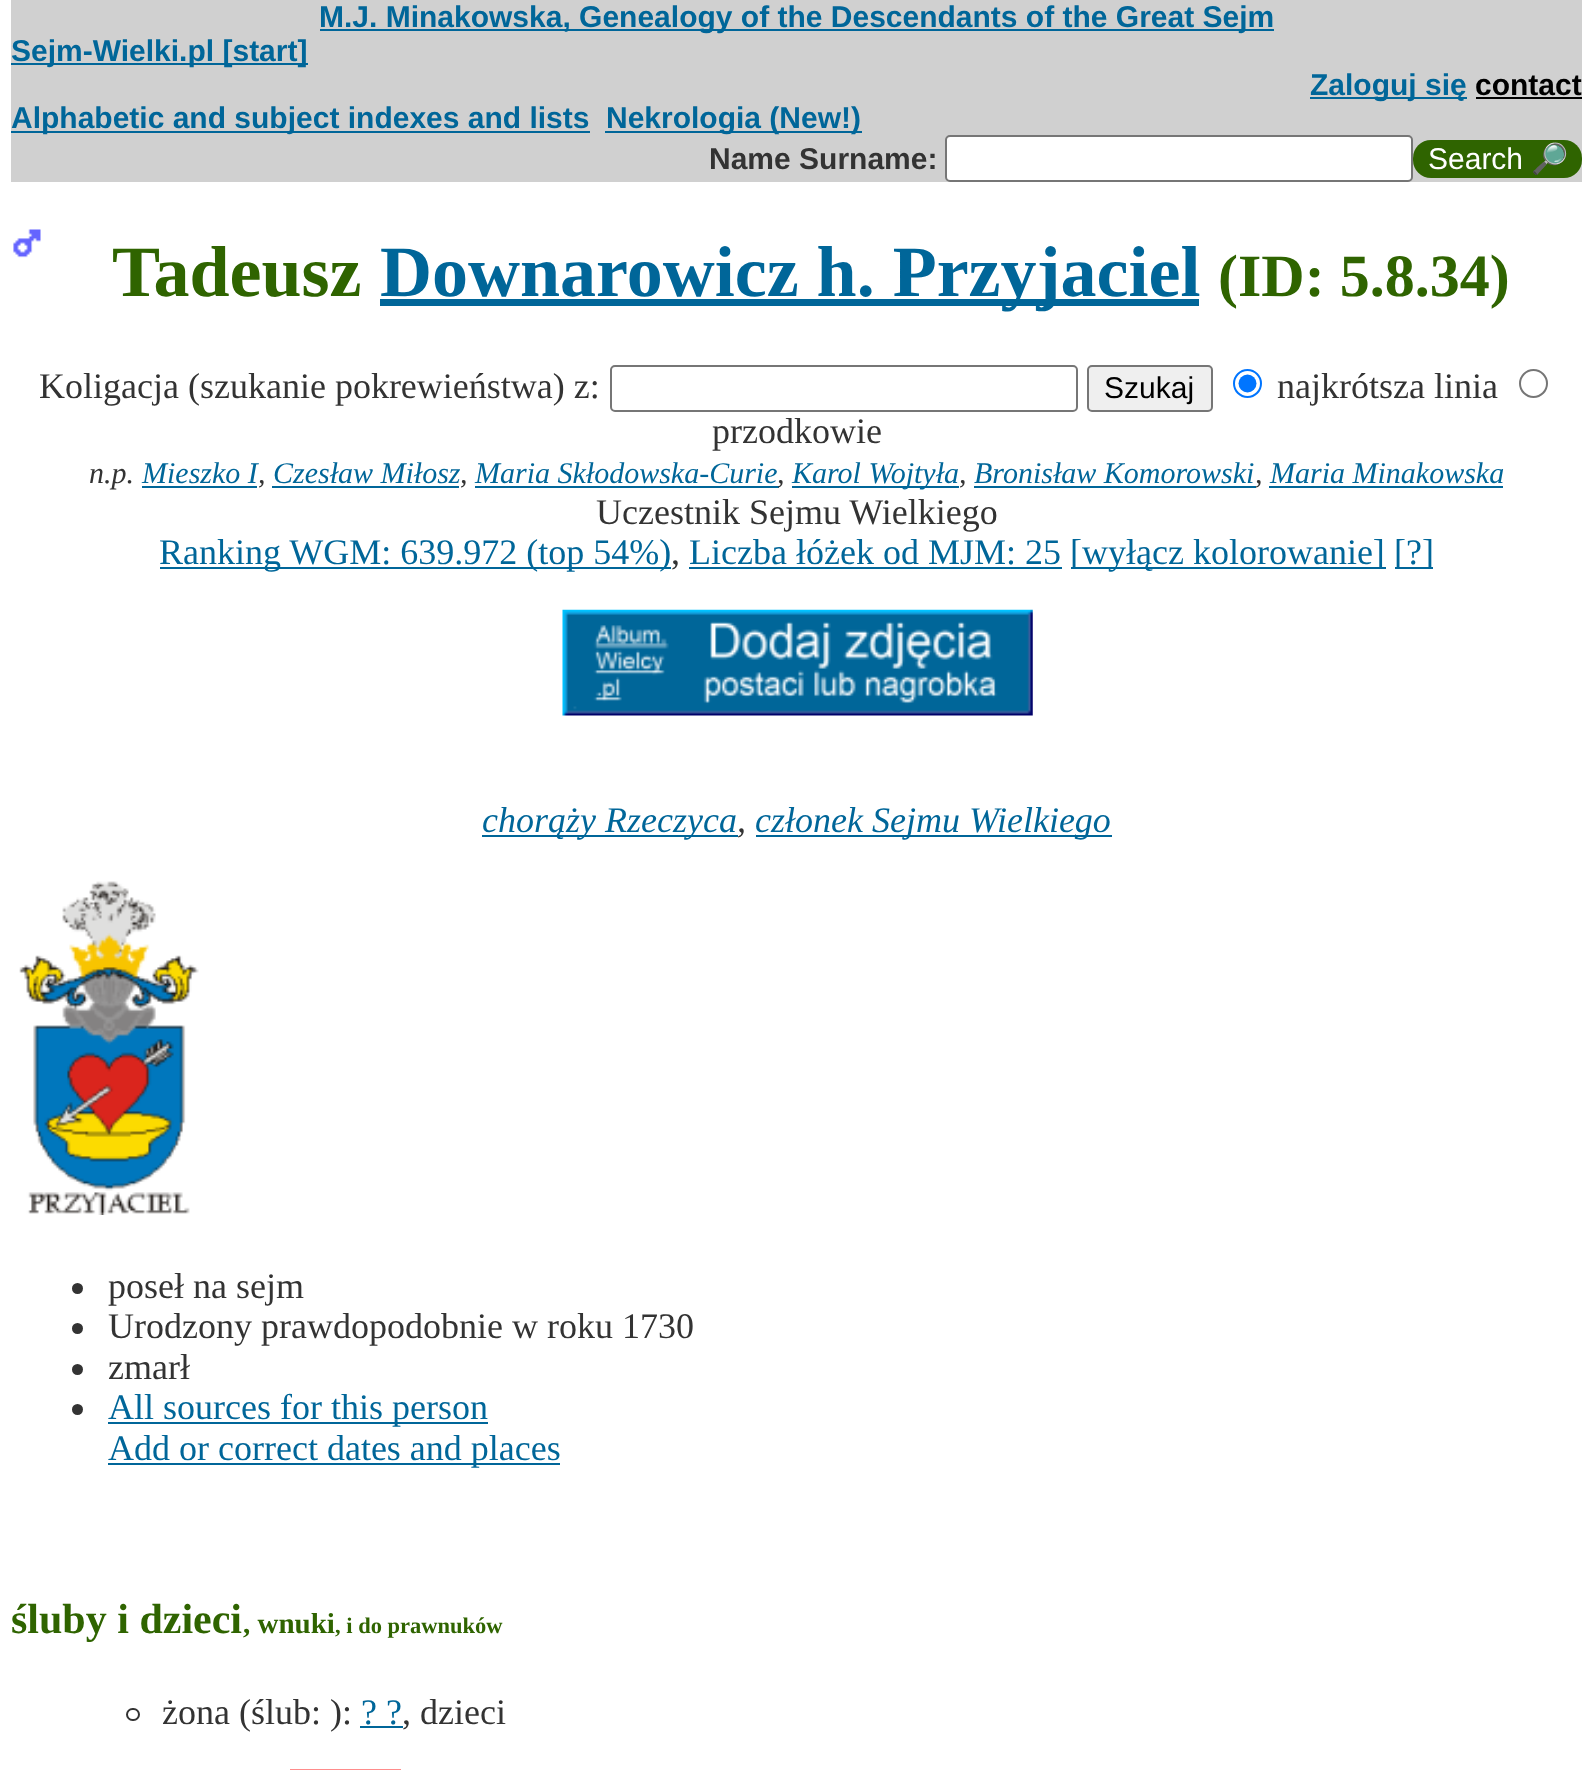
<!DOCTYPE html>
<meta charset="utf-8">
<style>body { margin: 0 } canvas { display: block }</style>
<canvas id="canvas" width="1591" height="1770"></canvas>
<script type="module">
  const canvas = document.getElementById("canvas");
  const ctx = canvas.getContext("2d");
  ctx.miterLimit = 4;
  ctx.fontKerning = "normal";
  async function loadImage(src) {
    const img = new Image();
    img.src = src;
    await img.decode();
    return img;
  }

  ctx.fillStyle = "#ffffff";
  ctx.fillRect(0, 0, 1591, 1770);
  ctx.fillStyle = "#d0d0d0";
  ctx.fillRect(11, 0, 1571, 182);
  ctx.fillStyle = "#006699";
  ctx.fillRect(320, 29, 954, 2);
  ctx.font = "bold 30px Liberation Sans";
  ctx.fillText("M.J. Minakowska, Genealogy of the Descendants of the Great Sejm", 319, 27);
  ctx.fillRect(11, 63, 297, 2);
  ctx.fillText("Sejm-Wielki.pl [start]", 11, 61);
  ctx.fillRect(1310, 97, 157, 2);
  ctx.fillText("Zaloguj się", 1310, 95);
  ctx.fillStyle = "#000000";
  ctx.fillText("contact", 1475, 95);
  ctx.fillRect(1476, 97, 106, 2);
  ctx.fillStyle = "#006699";
  ctx.fillRect(11, 131, 579, 2);
  ctx.fillText("Alphabetic and subject indexes and lists", 11, 128);
  ctx.fillRect(605, 131, 257, 2);
  ctx.fillText("Nekrologia (New!)", 606, 128);
  ctx.fillStyle = "#333333";
  ctx.fillText("Name Surname:", 709, 169);
  ctx.fillStyle = "#ffffff";
  ctx.beginPath();
  ctx.roundRect(946, 136, 466, 45, 4);
  ctx.fill();
  ctx.strokeStyle = "#767676";
  ctx.lineWidth = 2;
  ctx.stroke();
  ctx.fillStyle = "#2f6400";
  ctx.beginPath();
  ctx.roundRect(1413, 140, 169, 38, 18);
  ctx.fill();
  ctx.font = "30px Liberation Sans";
  ctx.fillStyle = "#ffffff";
  ctx.fillText("Search", 1428, 169);
  ctx.font = "30px Noto Color Emoji";
  ctx.fillText("🔎", 1531, 169);
  ctx.drawImage(await loadImage("img1.png"), 13, 229, 28, 29);
  ctx.font = "bold 72px Liberation Serif";
  ctx.fillStyle = "#2f6400";
  ctx.fillText("Tadeusz", 112, 296);
  ctx.fillStyle = "#006699";
  ctx.fillRect(380, 299, 819, 7);
  ctx.fillText("Downarowicz h. Przyjaciel", 380, 296);
  ctx.font = "bold 60px Liberation Serif";
  ctx.fillStyle = "#2f6400";
  ctx.fillText("(ID: 5.8.34)", 1218, 296);
  ctx.font = "36px Liberation Serif";
  ctx.fillStyle = "#333333";
  ctx.fillText("Koligacja (szukanie pokrewieństwa) z:", 39, 398);
  ctx.beginPath();
  ctx.roundRect(611, 366, 466, 45, 4);
  ctx.stroke();
  ctx.fillStyle = "#efefef";
  ctx.beginPath();
  ctx.roundRect(1088, 366, 124, 45, 4);
  ctx.fill();
  ctx.stroke();
  ctx.font = "30px Liberation Sans";
  ctx.fillStyle = "#000000";
  ctx.fillText("Szukaj", 1104, 398);
  ctx.beginPath();
  ctx.arc(1247.5, 383.5, 13.5, 0, Math.PI * 2);
  ctx.strokeStyle = "#0075ff";
  ctx.stroke();
  ctx.fillStyle = "#0075ff";
  ctx.beginPath();
  ctx.arc(1247.5, 383.5, 9, 0, Math.PI * 2);
  ctx.fill();
  ctx.font = "36px Liberation Serif";
  ctx.fillStyle = "#333333";
  ctx.fillText("najkrótsza linia", 1277, 398);
  ctx.beginPath();
  ctx.arc(1533.5, 383.5, 13.5, 0, Math.PI * 2);
  ctx.strokeStyle = "#767676";
  ctx.stroke();
  ctx.fillText("przodkowie", 712, 443);
  ctx.font = "italic 30px Liberation Serif";
  ctx.fillText("n.p.", 89, 483);
  ctx.fillStyle = "#006699";
  ctx.fillText("Mieszko I", 142, 483);
  ctx.fillStyle = "#333333";
  ctx.fillText(",", 258, 483);
  ctx.fillStyle = "#006699";
  ctx.fillRect(142, 486, 115, 2);
  ctx.fillText("Czesław Miłosz", 273, 483);
  ctx.fillStyle = "#333333";
  ctx.fillText(",", 460, 483);
  ctx.fillStyle = "#006699";
  ctx.fillRect(272, 486, 187, 2);
  ctx.fillText("Maria Skłodowska-Curie", 475, 483);
  ctx.fillRect(475, 486, 304, 2);
  ctx.fillStyle = "#333333";
  ctx.fillText(",", 777, 483);
  ctx.fillStyle = "#006699";
  ctx.fillRect(792, 486, 167, 2);
  ctx.fillText("Karol Wojtyła", 792, 483);
  ctx.fillStyle = "#333333";
  ctx.fillText(",", 959, 483);
  ctx.fillStyle = "#006699";
  ctx.fillText("Bronisław Komorowski", 974, 483);
  ctx.fillRect(974, 486, 282, 2);
  ctx.fillStyle = "#333333";
  ctx.fillText(",", 1255, 483);
  ctx.fillStyle = "#006699";
  ctx.fillRect(1269, 486, 234, 2);
  ctx.fillText("Maria Minakowska", 1270, 483);
  ctx.font = "36px Liberation Serif";
  ctx.fillStyle = "#333333";
  ctx.fillText("Uczestnik Sejmu Wielkiego", 596, 524);
  ctx.fillStyle = "#006699";
  ctx.fillRect(160, 567, 511, 2);
  ctx.fillText("Ranking WGM: 639.972 (top 54%)", 159, 564);
  ctx.fillStyle = "#333333";
  ctx.fillText(",", 671, 564);
  ctx.fillStyle = "#006699";
  ctx.fillText("Liczba łóżek od MJM: 25", 689, 564);
  ctx.fillRect(689, 567, 373, 2);
  ctx.fillRect(1071, 567, 315, 2);
  ctx.fillText("[wyłącz kolorowanie]", 1070, 564);
  ctx.fillRect(1395, 567, 38, 2);
  ctx.fillText("[?]", 1394, 564);
  ctx.drawImage(await loadImage("img2.png"), 562, 609, 471, 107);
  ctx.fillRect(482, 835, 256, 2);
  ctx.font = "italic 36px Liberation Serif";
  ctx.fillText("chorąży Rzeczyca", 482, 832);
  ctx.fillStyle = "#333333";
  ctx.fillText(",", 737, 832);
  ctx.fillStyle = "#006699";
  ctx.fillRect(756, 835, 356, 2);
  ctx.fillText("członek Sejmu Wielkiego", 755, 832);
  ctx.drawImage(await loadImage("img3.png"), 19, 881, 180, 334);
  ctx.fillStyle = "#333333";
  ctx.beginPath();
  ctx.arc(77.5, 1288.5, 5.5, 0, Math.PI * 2);
  ctx.fill();
  ctx.font = "36px Liberation Serif";
  ctx.fillText("poseł na sejm", 108, 1298);
  ctx.beginPath();
  ctx.arc(77.5, 1328.5, 5.5, 0, Math.PI * 2);
  ctx.fill();
  ctx.fillText("Urodzony prawdopodobnie w roku 1730", 108, 1338);
  ctx.beginPath();
  ctx.arc(77.5, 1369.5, 5.5, 0, Math.PI * 2);
  ctx.fill();
  ctx.fillText("zmarł", 108, 1379);
  ctx.beginPath();
  ctx.arc(77.5, 1409.5, 5.5, 0, Math.PI * 2);
  ctx.fill();
  ctx.fillStyle = "#006699";
  ctx.fillRect(108, 1422, 380, 2);
  ctx.fillText("All sources for this person", 108, 1419);
  ctx.fillRect(108, 1463, 452, 2);
  ctx.fillText("Add or correct dates and places", 108, 1460);
  ctx.font = "bold 42px Liberation Serif";
  ctx.fillStyle = "#2f6400";
  ctx.fillText("śluby i dzieci", 11, 1633);
  ctx.font = "bold 29px Liberation Serif";
  ctx.fillText(", wnuki", 243, 1633);
  ctx.font = "bold 22.5px Liberation Serif";
  ctx.fillText(", i do prawnuków", 335, 1633);
  ctx.beginPath();
  ctx.roundRect(127, 1709, 12, 11, 5.5);
  ctx.strokeStyle = "#333333";
  ctx.stroke();
  ctx.font = "36px Liberation Serif";
  ctx.fillStyle = "#333333";
  ctx.fillText("żona (ślub: ):", 162, 1724);
  ctx.fillStyle = "#006699";
  ctx.fillText("? ?", 361, 1724);
  ctx.fillRect(360, 1726, 43, 2);
  ctx.fillStyle = "#333333";
  ctx.fillText(", dzieci", 402, 1724);
  ctx.fillStyle = "#ff8c8c";
  ctx.fillRect(290, 1769, 111, 1);
</script>
